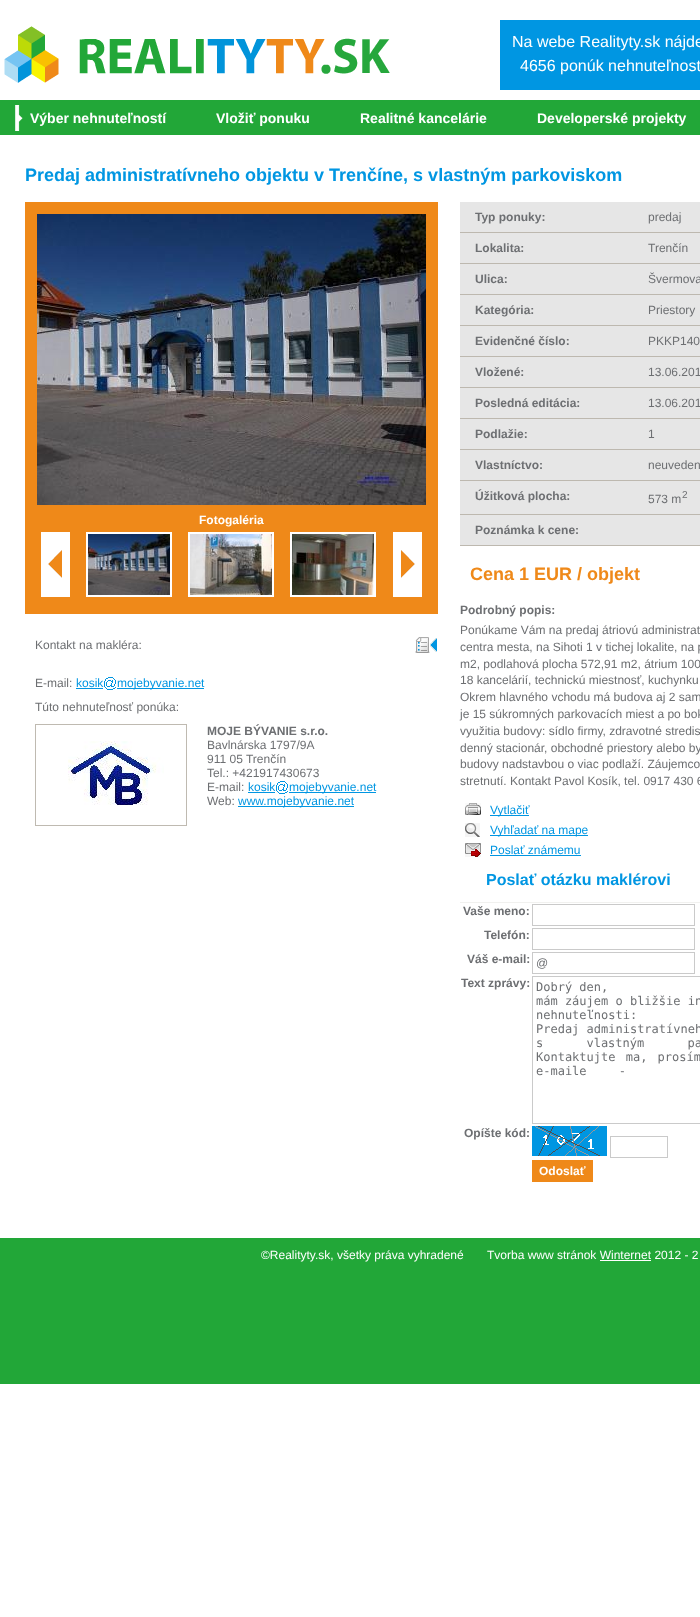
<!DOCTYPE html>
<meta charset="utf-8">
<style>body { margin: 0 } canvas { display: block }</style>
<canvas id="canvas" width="700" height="1617"></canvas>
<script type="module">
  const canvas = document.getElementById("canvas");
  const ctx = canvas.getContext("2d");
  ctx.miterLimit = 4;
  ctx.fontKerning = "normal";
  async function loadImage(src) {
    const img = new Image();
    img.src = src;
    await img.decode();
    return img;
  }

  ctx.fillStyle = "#ffffff";
  ctx.fillRect(0, 0, 700, 1617);
  ctx.drawImage(await loadImage("img1.png"), 4, 26, 386, 57);
  ctx.fillStyle = "#0096e2";
  ctx.fillRect(500, 20, 200, 70);
  ctx.font = "16px Liberation Sans";
  ctx.fillStyle = "#ffffff";
  ctx.fillText("Na webe Realityty.sk nájde", 512, 47);
  ctx.fillText("4656 ponúk nehnuteľnost", 520, 71);
  ctx.fillStyle = "#22a738";
  ctx.fillRect(0, 100, 700, 35);
  ctx.drawImage(await loadImage("img2.png"), 15, 105, 8, 26);
  ctx.font = "bold 14px Liberation Sans";
  ctx.fillStyle = "#ffffff";
  ctx.fillText("Výber nehnuteľností", 30, 123);
  ctx.fillText("Vložiť ponuku", 216, 123);
  ctx.fillText("Realitné kancelárie", 360, 123);
  ctx.fillText("Developerské projekty", 537, 123);
  ctx.font = "bold 18px Liberation Sans";
  ctx.fillStyle = "#0096e2";
  ctx.fillText("Predaj administratívneho objektu v Trenčíne, s vlastným parkoviskom", 25, 181);
  ctx.fillStyle = "#ef8919";
  ctx.fillRect(25, 202, 413, 412);
  ctx.drawImage(await loadImage("img3.png"), 37, 214, 389, 291);
  ctx.font = "bold 12px Liberation Sans";
  ctx.fillStyle = "#ffffff";
  ctx.fillText("Fotogaléria", 199, 524);
  ctx.drawImage(await loadImage("img4.png"), 41, 532, 29, 65);
  ctx.strokeStyle = "#ffffff";
  ctx.lineWidth = 2;
  ctx.strokeRect(87, 533, 84, 63);
  ctx.strokeRect(189, 533, 84, 63);
  ctx.strokeRect(291, 533, 84, 63);
  ctx.drawImage(await loadImage("img5.png"), 88, 534, 82, 61);
  ctx.drawImage(await loadImage("img6.png"), 190, 534, 82, 61);
  ctx.drawImage(await loadImage("img7.png"), 292, 534, 82, 61);
  ctx.drawImage(await loadImage("img8.png"), 393, 532, 29, 65);
  ctx.font = "12px Liberation Sans";
  ctx.fillStyle = "#6d6f72";
  ctx.fillText("Kontakt na makléra:", 35, 649);
  ctx.drawImage(await loadImage("img9.png"), 415, 637, 22, 16);
  ctx.fillText("E-mail:", 35, 687);
  ctx.fillStyle = "#0096e2";
  ctx.fillText("kosik", 76, 687);
  ctx.fillRect(76, 688, 27, 1);
  ctx.drawImage(await loadImage("img10.png"), 104, 677, 12, 13);
  ctx.fillRect(117, 688, 87, 1);
  ctx.fillText("mojebyvanie.net", 117, 687);
  ctx.fillStyle = "#6d6f72";
  ctx.fillText("Túto nehnuteľnosť ponúka:", 35, 711);
  ctx.strokeStyle = "#bfbab1";
  ctx.lineWidth = 1;
  ctx.strokeRect(35.5, 724.5, 151, 101);
  ctx.drawImage(await loadImage("img11.png"), 68, 741, 96, 64);
  ctx.font = "bold 12px Liberation Sans";
  ctx.fillText("MOJE BÝVANIE s.r.o.", 207, 735);
  ctx.font = "12px Liberation Sans";
  ctx.fillText("Bavlnárska 1797/9A", 207, 749);
  ctx.fillText("911 05 Trenčín", 207, 763);
  ctx.fillText("Tel.: +421917430673", 207, 777);
  ctx.fillText("E-mail:", 207, 791);
  ctx.fillStyle = "#0096e2";
  ctx.fillText("kosik", 248, 791);
  ctx.fillRect(248, 792, 27, 1);
  ctx.drawImage(await loadImage("img10.png"), 276, 781, 12, 13);
  ctx.fillRect(289, 792, 87, 1);
  ctx.fillText("mojebyvanie.net", 289, 791);
  ctx.fillStyle = "#6d6f72";
  ctx.fillText("Web:", 207, 805);
  ctx.fillStyle = "#0096e2";
  ctx.fillRect(238, 806, 116, 1);
  ctx.fillText("www.mojebyvanie.net", 238, 805);
  ctx.fillStyle = "#e6e6e6";
  ctx.fillRect(460, 202, 240, 343);
  ctx.font = "bold 12px Liberation Sans";
  ctx.fillStyle = "#6d6f72";
  ctx.fillText("Typ ponuky:", 475, 221);
  ctx.fillStyle = "#bdb8af";
  ctx.fillRect(460, 232, 240, 1);
  ctx.font = "12px Liberation Sans";
  ctx.fillStyle = "#6d6f72";
  ctx.fillText("predaj", 648, 221);
  ctx.font = "bold 12px Liberation Sans";
  ctx.fillText("Lokalita:", 475, 252);
  ctx.fillStyle = "#bdb8af";
  ctx.fillRect(460, 263, 240, 1);
  ctx.font = "12px Liberation Sans";
  ctx.fillStyle = "#6d6f72";
  ctx.fillText("Trenčín", 648, 252);
  ctx.font = "bold 12px Liberation Sans";
  ctx.fillText("Ulica:", 475, 283);
  ctx.fillStyle = "#bdb8af";
  ctx.fillRect(460, 294, 240, 1);
  ctx.font = "12px Liberation Sans";
  ctx.fillStyle = "#6d6f72";
  ctx.fillText("Švermova", 648, 283);
  ctx.font = "bold 12px Liberation Sans";
  ctx.fillText("Kategória:", 475, 314);
  ctx.fillStyle = "#bdb8af";
  ctx.fillRect(460, 325, 240, 1);
  ctx.font = "12px Liberation Sans";
  ctx.fillStyle = "#6d6f72";
  ctx.fillText("Priestory", 648, 314);
  ctx.font = "bold 12px Liberation Sans";
  ctx.fillText("Evidenčné číslo:", 475, 345);
  ctx.fillStyle = "#bdb8af";
  ctx.fillRect(460, 356, 240, 1);
  ctx.font = "12px Liberation Sans";
  ctx.fillStyle = "#6d6f72";
  ctx.fillText("PKKP140", 648, 345);
  ctx.font = "bold 12px Liberation Sans";
  ctx.fillText("Vložené:", 475, 376);
  ctx.fillStyle = "#bdb8af";
  ctx.fillRect(460, 387, 240, 1);
  ctx.font = "12px Liberation Sans";
  ctx.fillStyle = "#6d6f72";
  ctx.fillText("13.06.201", 648, 376);
  ctx.font = "bold 12px Liberation Sans";
  ctx.fillText("Posledná editácia:", 475, 407);
  ctx.fillStyle = "#bdb8af";
  ctx.fillRect(460, 418, 240, 1);
  ctx.font = "12px Liberation Sans";
  ctx.fillStyle = "#6d6f72";
  ctx.fillText("13.06.201", 648, 407);
  ctx.font = "bold 12px Liberation Sans";
  ctx.fillText("Podlažie:", 475, 438);
  ctx.fillStyle = "#bdb8af";
  ctx.fillRect(460, 449, 240, 1);
  ctx.font = "12px Liberation Sans";
  ctx.fillStyle = "#6d6f72";
  ctx.fillText("1", 648, 438);
  ctx.font = "bold 12px Liberation Sans";
  ctx.fillText("Vlastníctvo:", 475, 469);
  ctx.fillStyle = "#bdb8af";
  ctx.fillRect(460, 480, 240, 1);
  ctx.font = "12px Liberation Sans";
  ctx.fillStyle = "#6d6f72";
  ctx.fillText("neuveden", 648, 469);
  ctx.font = "bold 12px Liberation Sans";
  ctx.fillText("Úžitková plocha:", 475, 500);
  ctx.fillStyle = "#bdb8af";
  ctx.fillRect(460, 514, 240, 1);
  ctx.font = "12px Liberation Sans";
  ctx.fillStyle = "#6d6f72";
  ctx.fillText("573 m", 648, 503);
  ctx.font = "10px Liberation Sans";
  ctx.fillText("2", 682, 498);
  ctx.font = "bold 12px Liberation Sans";
  ctx.fillText("Poznámka k cene:", 475, 534);
  ctx.fillStyle = "#bdb8af";
  ctx.fillRect(460, 545, 240, 1);
  ctx.font = "bold 18px Liberation Sans";
  ctx.fillStyle = "#ef8919";
  ctx.fillText("Cena 1 EUR / objekt", 470, 580);
  ctx.font = "bold 12px Liberation Sans";
  ctx.fillStyle = "#6d6f72";
  ctx.fillText("Podrobný popis:", 460, 614);
  ctx.font = "12px Liberation Sans";
  ctx.fillText("Ponúkame Vám na predaj átriovú administrat", 460, 634);
  ctx.fillText("centra mesta, na Sihoti 1 v tichej lokalite, na p", 460, 651);
  ctx.fillText("m2, podlahová plocha 572,91 m2, átrium 100", 460, 668);
  ctx.fillText("18 kancelárií, technickú miestnosť, kuchynku", 460, 684);
  ctx.fillText("Okrem hlavného vchodu má budova aj 2 sam", 460, 701);
  ctx.fillText("je 15 súkromných parkovacích miest a po bok", 460, 718);
  ctx.fillText("využitia budovy: sídlo firmy, zdravotné stredis", 460, 735);
  ctx.fillText("denný stacionár, obchodné priestory alebo by", 460, 752);
  ctx.fillText("budovy nadstavbou o viac podlaží. Záujemco", 460, 768);
  ctx.fillText("stretnutí. Kontakt Pavol Kosík, tel. 0917 430 6", 460, 785);
  ctx.drawImage(await loadImage("img12.png"), 465, 803, 16, 12);
  ctx.fillStyle = "#0096e2";
  ctx.fillRect(490, 815, 39, 1);
  ctx.fillText("Vytlačiť", 490, 814);
  ctx.drawImage(await loadImage("img13.png"), 465, 823, 15, 14);
  ctx.fillRect(490, 835, 98, 1);
  ctx.fillText("Vyhľadať na mape", 490, 834);
  ctx.drawImage(await loadImage("img14.png"), 465, 843, 16, 14);
  ctx.fillText("Poslať známemu", 490, 854);
  ctx.fillRect(490, 855, 91, 1);
  ctx.fillStyle = "#f1f1ef";
  ctx.fillRect(460, 902, 240, 1);
  ctx.font = "bold 16px Liberation Sans";
  ctx.fillStyle = "#0096e2";
  ctx.fillText("Poslať otázku maklérovi", 486, 885);
  ctx.font = "bold 12px Liberation Sans";
  ctx.fillStyle = "#6d6f72";
  ctx.fillText("Vaše meno:", 463, 915);
  ctx.strokeStyle = "#cacaca";
  ctx.strokeRect(532.5, 904.5, 162, 21);
  ctx.fillText("Telefón:", 484, 939);
  ctx.strokeRect(532.5, 928.5, 162, 21);
  ctx.fillText("Váš e-mail:", 467, 963);
  ctx.strokeRect(532.5, 952.5, 162, 21);
  ctx.font = "12px Liberation Sans";
  ctx.fillText("@", 536, 967);
  ctx.font = "bold 12px Liberation Sans";
  ctx.fillText("Text zprávy:", 461, 987);
  ctx.strokeRect(532.5, 976.5, 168, 147);
  ctx.font = "12px DejaVu Sans Mono";
  ctx.fillText("Dobrý den,", 536, 991);
  ctx.fillText("mám záujem o bližšie in", 536, 1005);
  ctx.fillText("nehnuteľnosti:", 536, 1019);
  ctx.fillText("Predaj administratívneh", 536, 1033);
  ctx.wordSpacing = "36px";
  ctx.fillText("s vlastným pa", 536, 1047);
  ctx.wordSpacing = "3px";
  ctx.fillText("Kontaktujte ma, prosím", 536, 1061);
  ctx.wordSpacing = "25px";
  ctx.fillText("e-maile -", 536, 1075);
  ctx.wordSpacing = "0px";
  ctx.font = "bold 12px Liberation Sans";
  ctx.fillText("Opíšte kód:", 464, 1137);
  ctx.drawImage(await loadImage("img15.png"), 532, 1126, 75, 30);
  ctx.strokeRect(610.5, 1136.5, 57, 21);
  ctx.fillStyle = "#ef8919";
  ctx.fillRect(532, 1160, 61, 22);
  ctx.fillStyle = "#ffffff";
  ctx.fillText("Odoslať", 539, 1175);
  ctx.fillStyle = "#22a738";
  ctx.fillRect(0, 1238, 700, 146);
  ctx.font = "12px Liberation Sans";
  ctx.fillStyle = "#ffffff";
  ctx.fillText("©Realityty.sk, všetky práva vyhradené", 261, 1259);
  ctx.fillText("Tvorba www stránok Winternet 2012 - 2", 487, 1259);
  ctx.fillRect(600, 1260, 51, 1);
</script>
